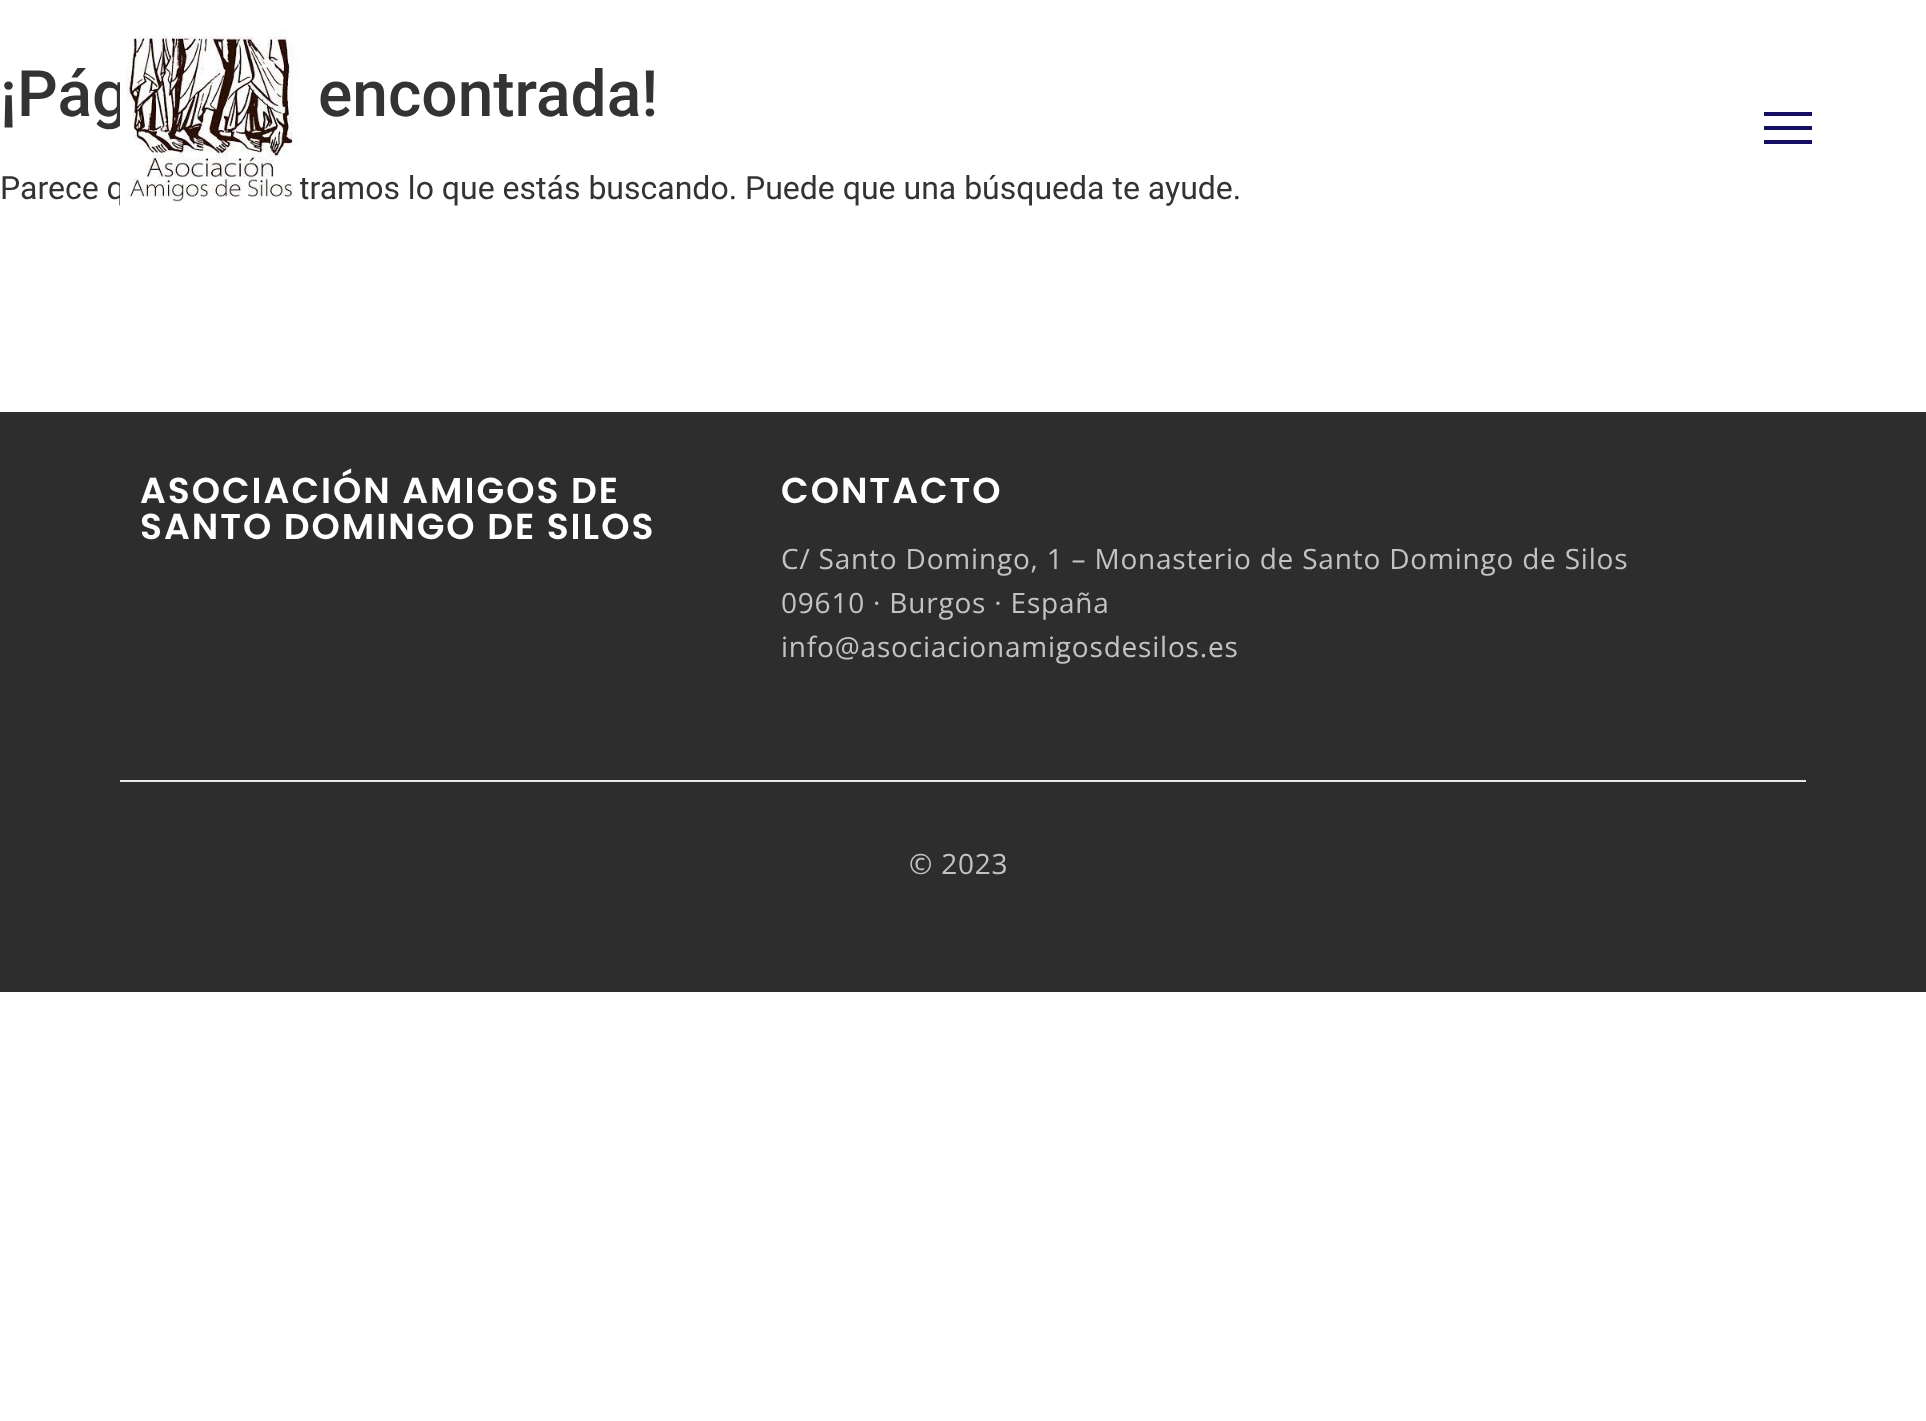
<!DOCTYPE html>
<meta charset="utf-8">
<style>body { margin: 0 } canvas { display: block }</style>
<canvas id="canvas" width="1926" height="1421"></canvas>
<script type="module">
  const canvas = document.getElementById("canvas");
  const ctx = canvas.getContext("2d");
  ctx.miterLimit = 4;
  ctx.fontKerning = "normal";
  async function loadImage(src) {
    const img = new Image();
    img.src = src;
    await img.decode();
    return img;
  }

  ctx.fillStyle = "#ffffff";
  ctx.fillRect(0, 0, 1926, 1421);
  ctx.font = "500 64px Roboto";
  ctx.fillStyle = "#333333";
  ctx.fillText("¡Pág", 0, 116);
  ctx.font = "32px Roboto";
  ctx.fillText("Parece q", 0, 199);
  ctx.fillText("tramos lo que estás buscando. Puede que una búsqueda te ayude.", 299, 199);
  ctx.drawImage(await loadImage("img1.png"), 120, 30, 180, 176);
  ctx.fillStyle = "#131064";
  ctx.fillRect(1764, 112, 48, 4);
  ctx.fillRect(1764, 126, 48, 4);
  ctx.fillRect(1764, 140, 48, 4);
  ctx.font = "500 64px Roboto";
  ctx.fillStyle = "#333333";
  ctx.fillText("encontrada!", 318, 116);
  ctx.fillStyle = "#2d2d2d";
  ctx.fillRect(0, 412, 1926, 580);
  ctx.letterSpacing = "2px";
  ctx.font = "600 36px Poppins";
  ctx.fillStyle = "#ffffff";
  ctx.fillText("ASOCIACIÓN AMIGOS DE", 140, 503);
  ctx.fillText("SANTO DOMINGO DE SILOS", 140, 539);
  ctx.fillText("CONTACTO", 781, 503);
  ctx.letterSpacing = "0.8px";
  ctx.font = "28px Open Sans";
  ctx.fillStyle = "#c3c3c3";
  ctx.fillText("C/ Santo Domingo, 1 – Monasterio de Santo Domingo de Silos", 781, 569);
  ctx.fillText("09610 · Burgos · España", 781, 613);
  ctx.fillText("info@asociacionamigosdesilos.es", 781, 657);
  ctx.fillStyle = "#e8e8e8";
  ctx.fillRect(120, 780, 1686, 2);
  ctx.fillStyle = "#c3c3c3";
  ctx.fillText("© 2023", 909, 874);
</script>
